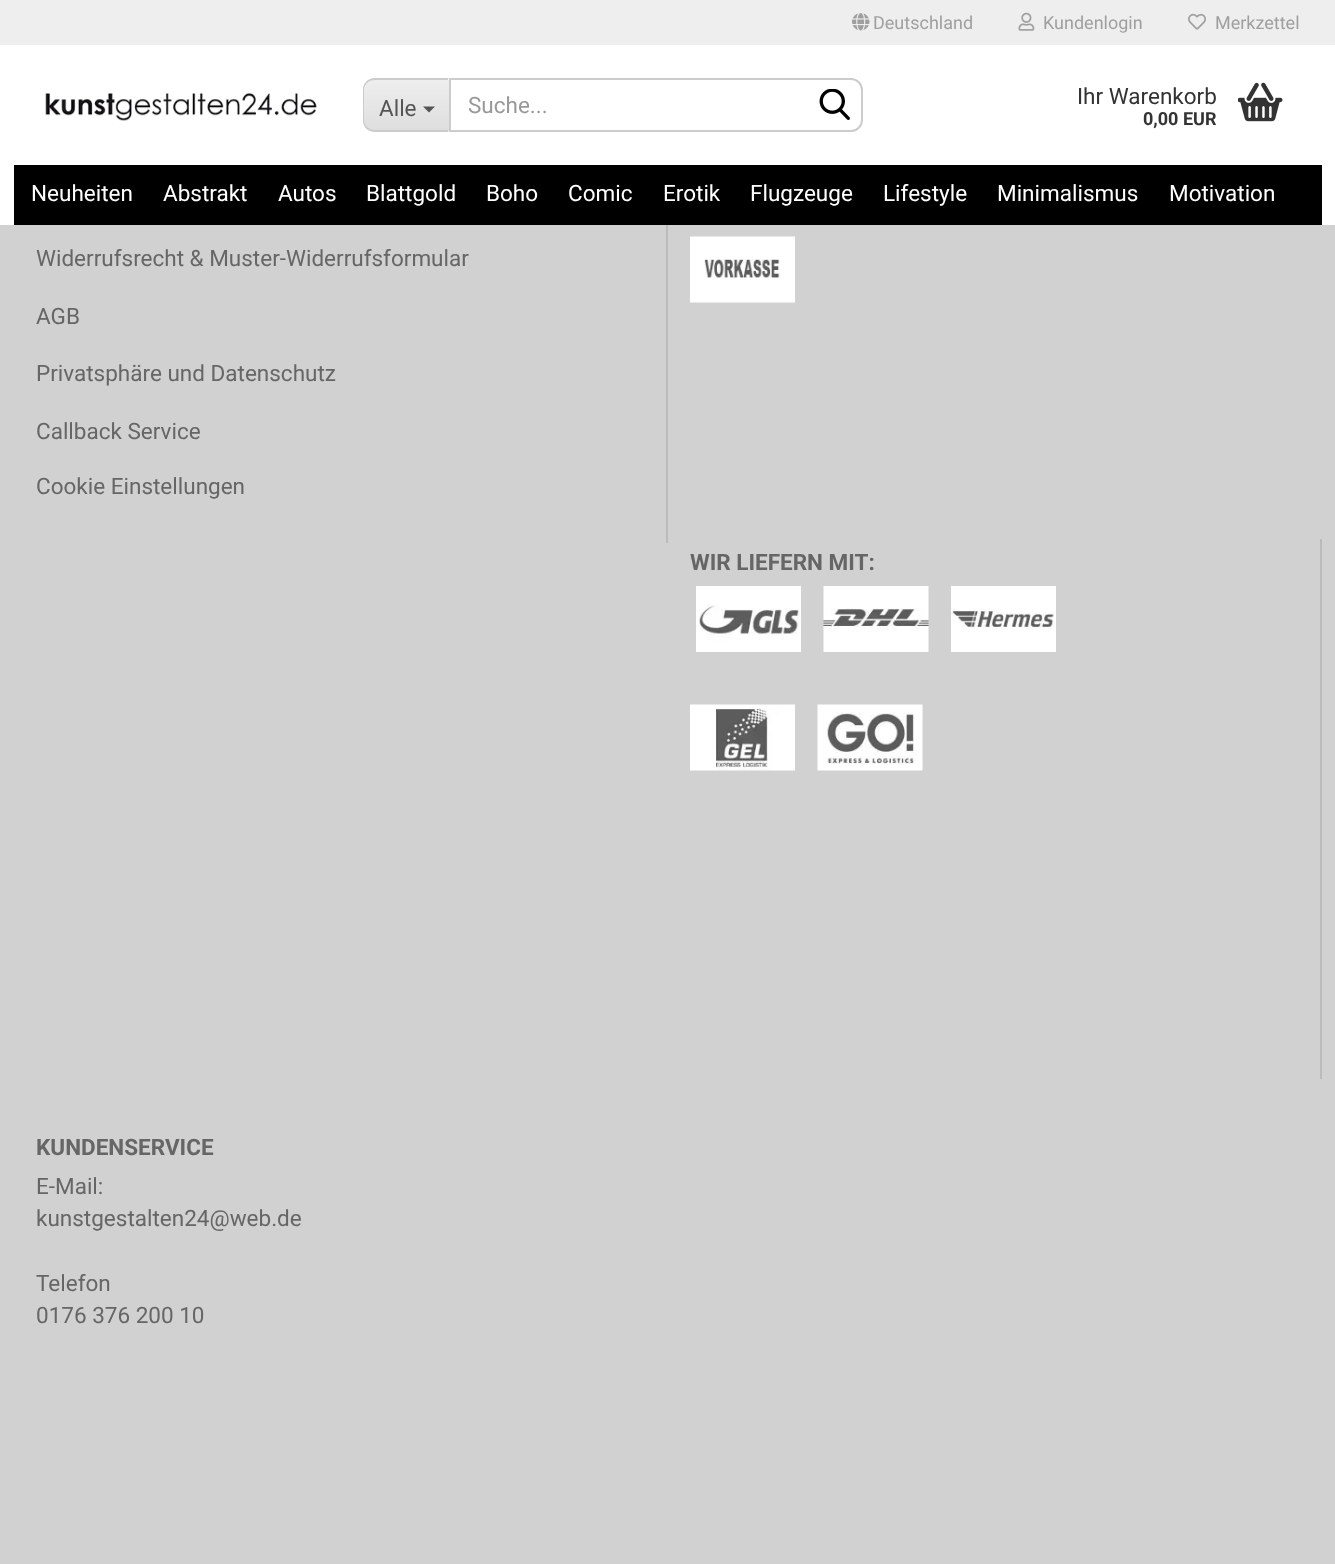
<!DOCTYPE html>
<meta charset="utf-8">
<style>body { margin: 0 } canvas { display: block }</style>
<canvas id="canvas" width="1335" height="1564"></canvas>
<script type="module">
  const canvas = document.getElementById("canvas");
  const ctx = canvas.getContext("2d");
  ctx.miterLimit = 4;
  ctx.fontKerning = "normal";
  async function loadImage(src) {
    const img = new Image();
    img.src = src;
    await img.decode();
    return img;
  }
  let gradient;

  ctx.fillStyle = "#d1d1d1";
  ctx.fillRect(0, 0, 1335, 1564);
  ctx.fillStyle = "#ffffff";
  ctx.fillRect(0, 45, 1335, 180);
  ctx.fillStyle = "#eeeeee";
  ctx.fillRect(0, 0, 1335, 45);
  ctx.drawImage(await loadImage("img1.png"), 852, 13, 18, 18);
  ctx.font = "18px Roboto";
  ctx.fillStyle = "#9f9f9f";
  ctx.fillText("Deutschland", 873, 29);
  ctx.drawImage(await loadImage("img2.png"), 1018, 12, 17, 19);
  ctx.fillText("Kundenlogin", 1043, 29);
  ctx.drawImage(await loadImage("img3.png"), 1188, 13, 18, 17);
  ctx.fillText("Merkzettel", 1215, 29);
  ctx.drawImage(await loadImage("img4.png"), 45, 93, 272, 29);
  ctx.fillStyle = "#f3f3f3";
  ctx.beginPath();
  ctx.roundRect(363, 78, 86, 54, [12, 0, 0, 12]);
  ctx.fill();
  ctx.save();
  ctx.beginPath();
  ctx.roundRect(363, 78, 86, 54, [12, 0, 0, 12]);
  ctx.clip();
  gradient = ctx.createLinearGradient(407, 80, 407, 131);
  gradient.addColorStop(0, "#eeeeee");
  gradient.addColorStop(1, "#dedede");
  ctx.fillStyle = gradient;
  ctx.fillRect(363, 80, 86, 51);
  ctx.restore();
  ctx.fillStyle = "#cccccc";
  ctx.beginPath();
  ctx.moveTo(375, 78);
  ctx.lineTo(448, 78);
  ctx.lineTo(448, 132);
  ctx.lineTo(375, 132);
  ctx.bezierCurveTo(368, 132, 363, 127, 363, 120);
  ctx.lineTo(363, 90);
  ctx.bezierCurveTo(363, 83, 368, 78, 375, 78);
  ctx.closePath();
  ctx.moveTo(375, 80);
  ctx.lineTo(448, 80);
  ctx.lineTo(448, 130);
  ctx.lineTo(375, 130);
  ctx.bezierCurveTo(369, 130, 364, 126, 364, 120);
  ctx.lineTo(364, 90);
  ctx.bezierCurveTo(364, 84, 369, 80, 375, 80);
  ctx.closePath();
  ctx.fill("evenodd");
  ctx.font = "22.5px Roboto";
  ctx.fillStyle = "#555555";
  ctx.fillText("Alle", 379, 116);
  ctx.beginPath();
  ctx.moveTo(423, 106.5);
  ctx.lineTo(435, 106.5);
  ctx.lineTo(429, 112.5);
  ctx.closePath();
  ctx.fill();
  ctx.beginPath();
  ctx.roundRect(450, 79, 412, 52, [0, 11, 11, 0]);
  ctx.strokeStyle = "#cccccc";
  ctx.lineWidth = 2;
  ctx.stroke();
  ctx.fillStyle = "#999999";
  ctx.fillText("Suche...", 468, 113);
  ctx.drawImage(await loadImage("img5.png"), 819, 89, 31, 31);
  ctx.fillStyle = "#333333";
  ctx.fillText("Ihr Warenkorb", 1077, 104);
  ctx.font = "bold 18px Roboto";
  ctx.fillText("0,00 EUR", 1143, 125);
  ctx.drawImage(await loadImage("img6.png"), 1238, 82, 45, 40);
  ctx.fillStyle = "#000000";
  ctx.fillRect(14, 165, 1308, 60);
  ctx.font = "22.5px Roboto";
  ctx.fillStyle = "#ffffff";
  ctx.fillText("Neuheiten", 31, 201);
  ctx.fillText("Abstrakt", 163, 201);
  ctx.fillText("Autos", 278, 201);
  ctx.fillText("Blattgold", 366, 201);
  ctx.fillText("Boho", 486, 201);
  ctx.fillText("Comic", 568, 201);
  ctx.fillText("Erotik", 663, 201);
  ctx.fillText("Flugzeuge", 750, 201);
  ctx.fillText("Lifestyle", 883, 201);
  ctx.fillText("Minimalismus", 997, 201);
  ctx.fillText("Motivation", 1169, 201);
  ctx.fillStyle = "#bbbbbb";
  ctx.fillRect(666, 225, 2, 318);
  ctx.fillStyle = "#666666";
  ctx.fillText("Widerrufsrecht & Muster-Widerrufsformular", 36, 266);
  ctx.fillText("AGB", 36, 324);
  ctx.fillText("Privatsphäre und Datenschutz", 36, 381);
  ctx.fillText("Callback Service", 36, 439);
  ctx.fillText("Cookie Einstellungen", 36, 494);
  ctx.drawImage(await loadImage("img7.png"), 690, 236, 105, 67);
  ctx.fillStyle = "#bbbbbb";
  ctx.fillRect(1320, 539, 2, 540);
  ctx.font = "bold 22.5px Roboto";
  ctx.fillStyle = "#666666";
  ctx.fillText("WIR LIEFERN MIT:", 690, 570);
  ctx.drawImage(await loadImage("img8.png"), 696, 586, 105, 66);
  ctx.drawImage(await loadImage("img9.png"), 823, 586, 106, 66);
  ctx.drawImage(await loadImage("img10.png"), 951, 586, 105, 66);
  ctx.drawImage(await loadImage("img11.png"), 690, 704, 105, 67);
  ctx.drawImage(await loadImage("img12.png"), 817, 704, 106, 67);
  ctx.fillText("KUNDENSERVICE", 36, 1155);
  ctx.font = "22.5px Roboto";
  ctx.fillText("E-Mail:", 36, 1194);
  ctx.fillText("kunstgestalten24@web.de", 36, 1226);
  ctx.fillText("Telefon", 36, 1291);
  ctx.fillText("0176 376 200 10", 36, 1323);
</script>
